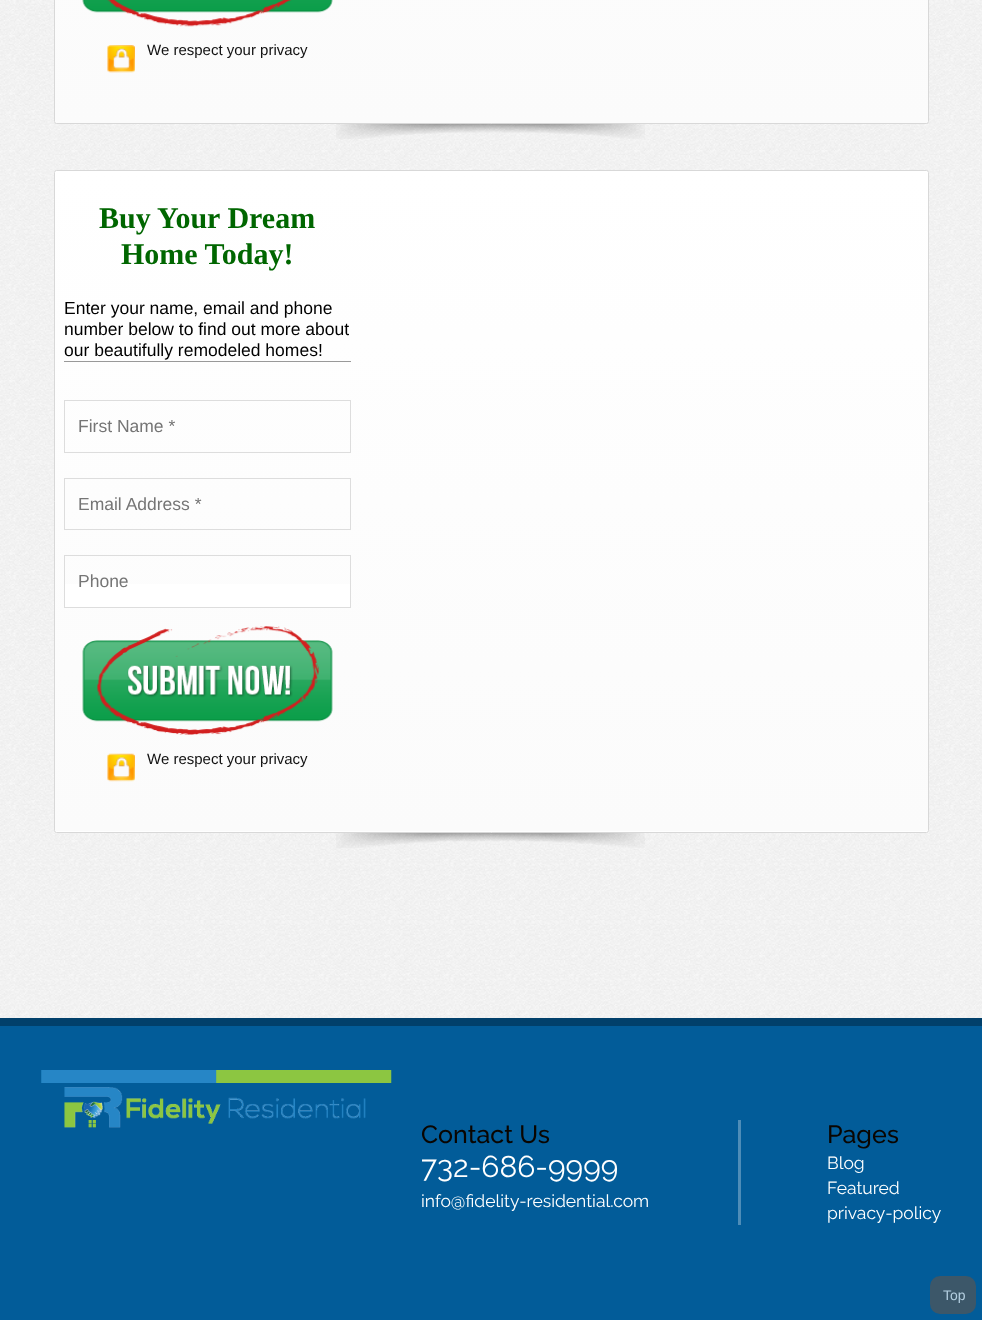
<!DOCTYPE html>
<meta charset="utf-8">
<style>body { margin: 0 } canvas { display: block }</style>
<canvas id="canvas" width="982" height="1320"></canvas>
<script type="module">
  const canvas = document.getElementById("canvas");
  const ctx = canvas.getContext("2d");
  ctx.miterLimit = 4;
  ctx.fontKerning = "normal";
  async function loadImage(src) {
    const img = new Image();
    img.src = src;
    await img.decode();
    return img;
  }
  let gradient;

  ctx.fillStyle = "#ffffff";
  ctx.fillRect(0, 0, 982, 1320);
  ctx.drawImage(await loadImage("img1.png"), 0, 0, 982, 1018);
  ctx.drawImage(await loadImage("img2.png"), 336, 124, 309, 15);
  gradient = ctx.createLinearGradient(491, -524, 491, 123);
  gradient.addColorStop(0, "#ffffff");
  gradient.addColorStop(1, "#fbfbfb");
  ctx.fillStyle = gradient;
  ctx.fillRect(54, 0, 875, 123);
  ctx.beginPath();
  ctx.roundRect(54.5, -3.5, 874, 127, 2);
  ctx.strokeStyle = "#d8d8d8";
  ctx.stroke();
  ctx.drawImage(await loadImage("img3.png"), 82, 0, 251, 27);
  ctx.drawImage(await loadImage("img4.png"), 107, 45, 28, 28);
  ctx.font = "15px Liberation Sans";
  ctx.fillStyle = "#111111";
  ctx.fillText("We respect your privacy", 147, 55);
  ctx.drawImage(await loadImage("img5.png"), 336, 833, 309, 15);
  gradient = ctx.createLinearGradient(491, 171, 491, 831);
  gradient.addColorStop(0, "#ffffff");
  gradient.addColorStop(1, "#fbfbfb");
  ctx.fillStyle = gradient;
  ctx.fillRect(54, 171, 875, 660);
  ctx.save();
  ctx.beginPath();
  ctx.roundRect(54, 170, 875, 663, 2.5);
  ctx.clip();
  gradient = ctx.createLinearGradient(491, 831, 491, 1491);
  gradient.addColorStop(0, "#ffffff");
  gradient.addColorStop(1, "#fbfbfb");
  ctx.fillStyle = gradient;
  ctx.fillRect(54, 831, 875, 2);
  ctx.restore();
  ctx.beginPath();
  ctx.roundRect(54.5, 170.5, 874, 662, 2);
  ctx.stroke();
  ctx.font = "bold 30px Liberation Serif";
  ctx.fillStyle = "#006600";
  ctx.fillText("Buy Your Dream", 99, 228);
  ctx.fillText("Home Today!", 121, 264);
  ctx.fillStyle = "#999999";
  ctx.fillRect(64, 361, 287, 1);
  ctx.font = "17.5px Liberation Sans";
  ctx.fillStyle = "#000000";
  ctx.fillText("Enter your name, email and phone", 64, 314);
  ctx.fillText("number below to find out more about", 64, 335);
  ctx.fillText("our beautifully remodeled homes!", 64, 356);
  ctx.strokeStyle = "#dddddd";
  ctx.strokeRect(64.5, 400.5, 286, 52);
  ctx.fillStyle = "#757575";
  ctx.fillText("First Name *", 78, 432);
  ctx.strokeRect(64.5, 478.5, 286, 51);
  ctx.fillText("Email Address *", 78, 510);
  ctx.fillStyle = "#ffffff";
  ctx.fillRect(65, 584, 285, 23);
  ctx.strokeRect(64.5, 555.5, 286, 52);
  ctx.fillStyle = "#757575";
  ctx.fillText("Phone", 78, 587);
  ctx.drawImage(await loadImage("img6.png"), 82, 626, 251, 109);
  ctx.drawImage(await loadImage("img7.png"), 107, 753, 28, 29);
  ctx.font = "15px Liberation Sans";
  ctx.fillStyle = "#111111";
  ctx.fillText("We respect your privacy", 147, 764);
  ctx.fillStyle = "#025c99";
  ctx.fillRect(0, 1026, 982, 294);
  ctx.fillStyle = "#01406b";
  ctx.fillRect(0, 1018, 982, 8);
  ctx.drawImage(await loadImage("img8.png"), 41, 1070, 351, 58);
  ctx.fillStyle = "#4e8db8";
  ctx.fillRect(738, 1120, 3, 105);
  ctx.font = "500 25px Raleway";
  ctx.fillStyle = "#0a0500";
  ctx.fillText("Contact Us", 421, 1143);
  ctx.font = "30px Raleway";
  ctx.fillStyle = "#ffffff";
  ctx.fillText("732-686-9999", 421, 1177);
  ctx.font = "17.5px Raleway";
  ctx.fillText("info@fidelity-residential.com", 421, 1207);
  ctx.font = "500 25px Raleway";
  ctx.fillStyle = "#0a0500";
  ctx.fillText("Pages", 827, 1143);
  ctx.font = "17.5px Raleway";
  ctx.fillStyle = "#ffffff";
  ctx.fillText("Blog", 827, 1169);
  ctx.fillText("Featured", 827, 1194);
  ctx.fillText("privacy-policy", 827, 1219);
  ctx.fillStyle = "#3c5769";
  ctx.beginPath();
  ctx.roundRect(930, 1276, 46, 38, 10);
  ctx.fill();
  ctx.font = "14px Liberation Sans";
  ctx.fillStyle = "#b3cee0";
  ctx.fillText("Top", 943, 1300);
</script>
